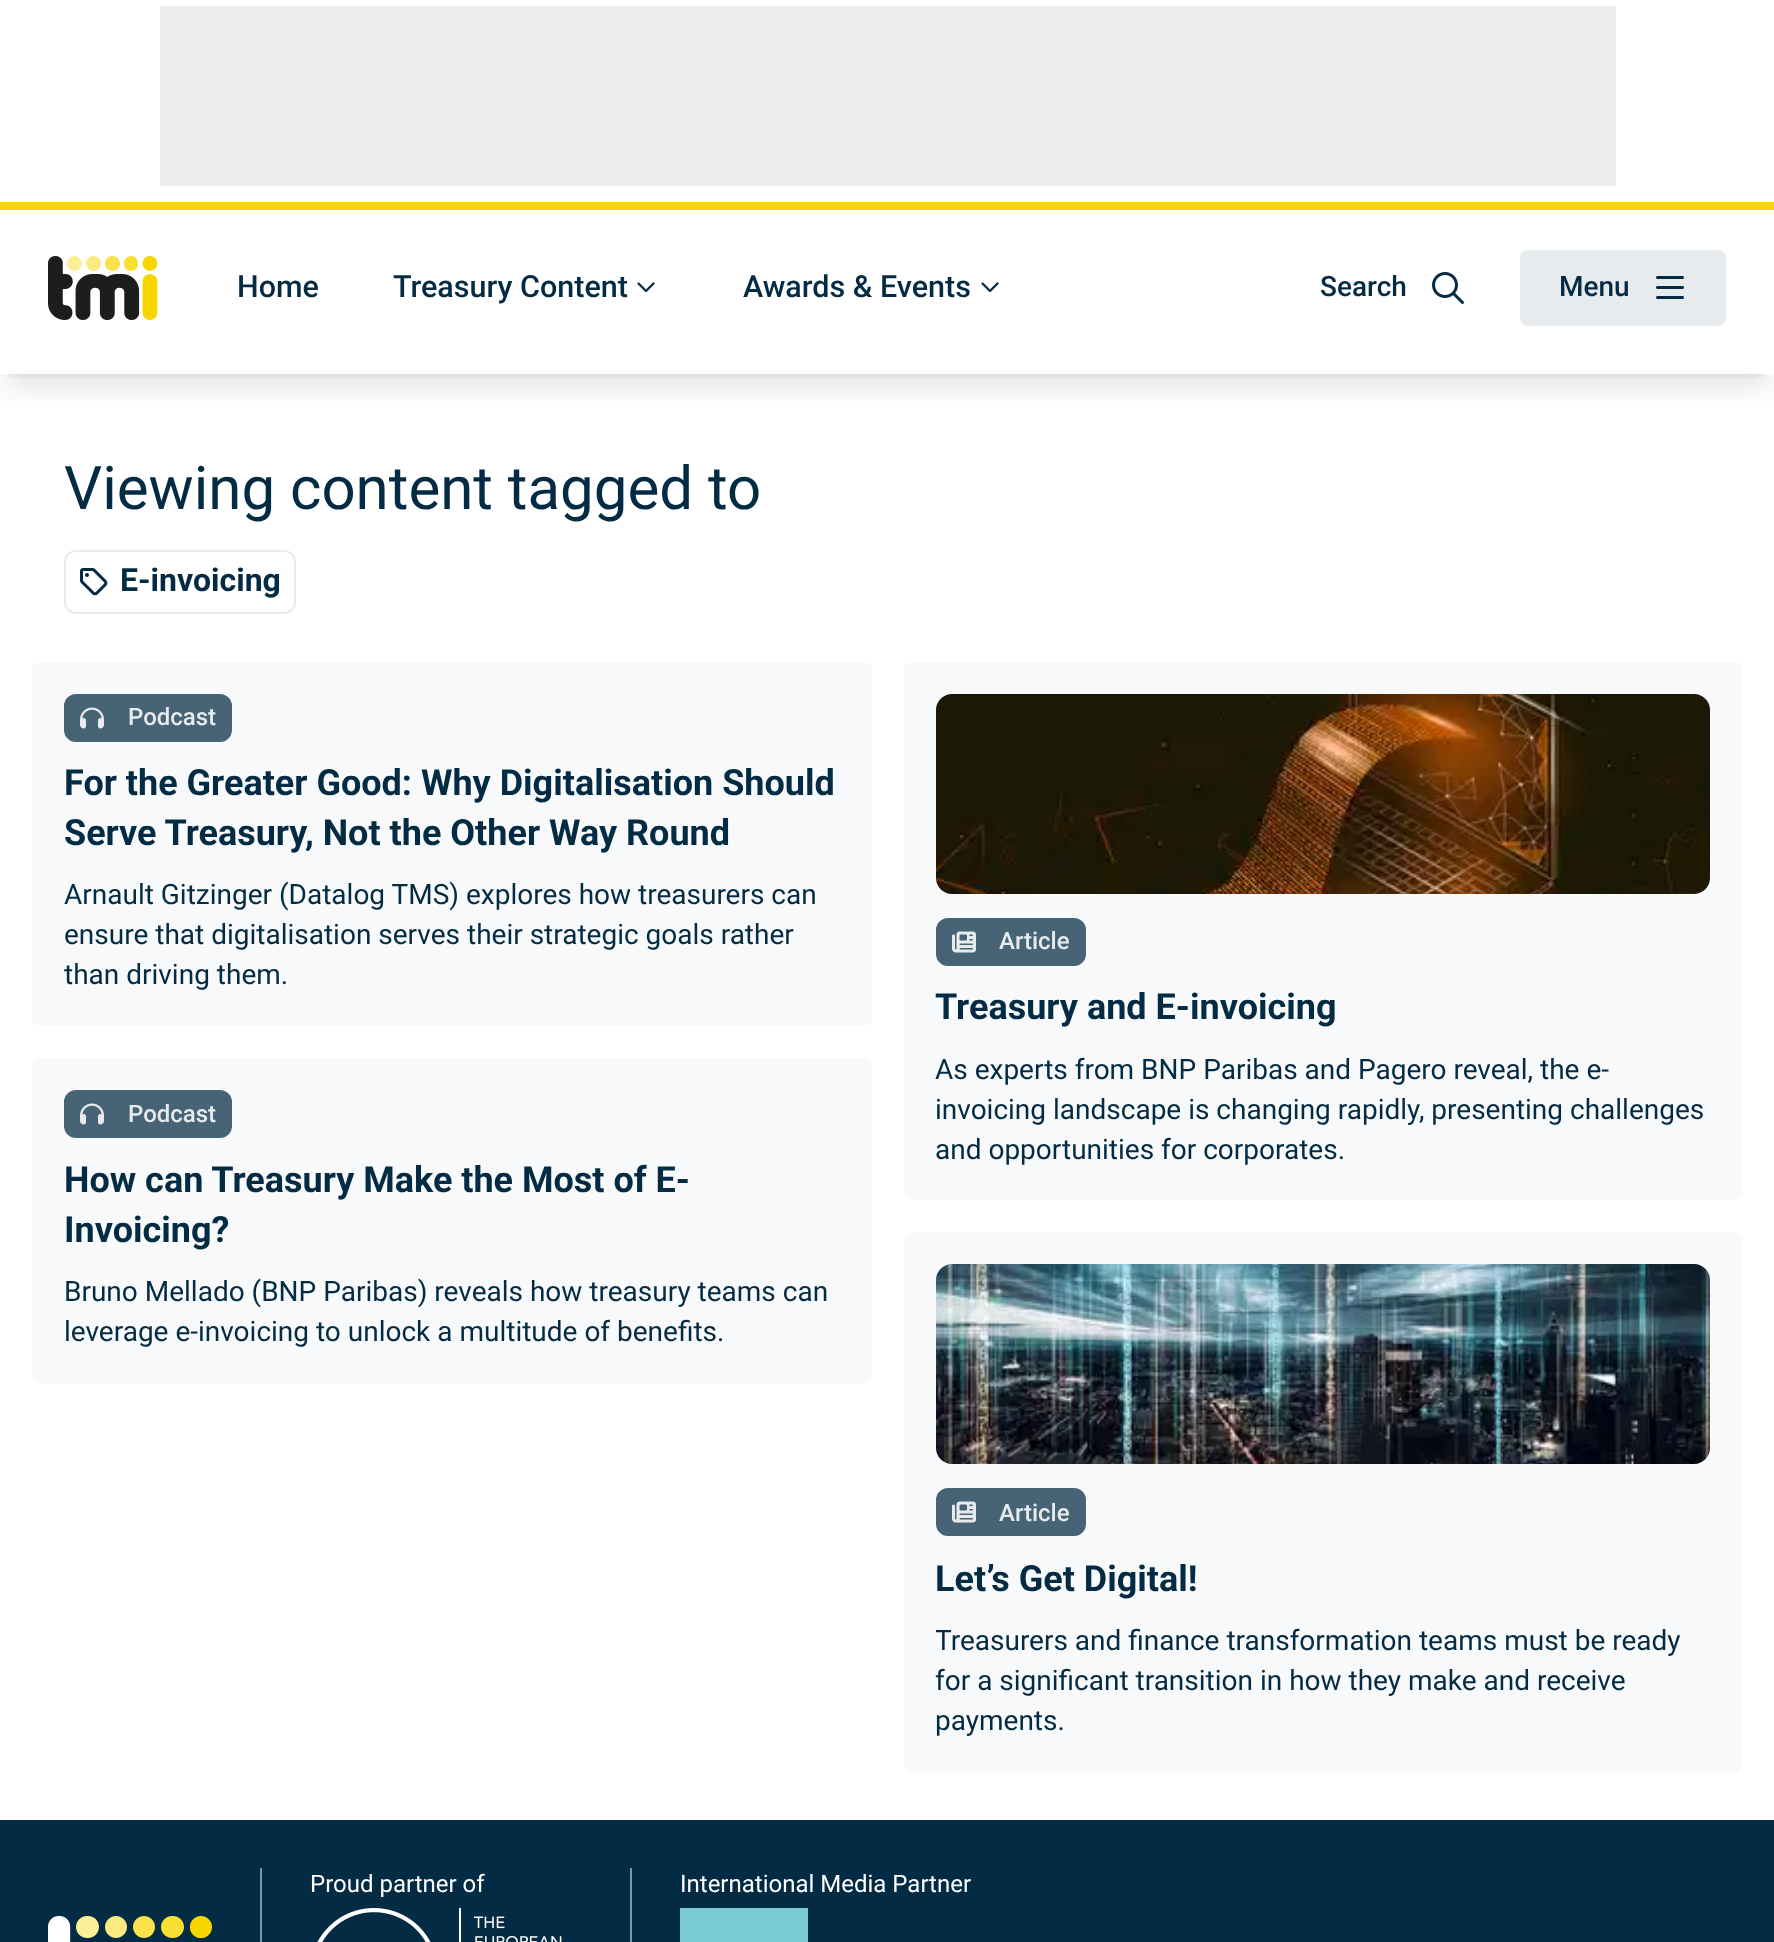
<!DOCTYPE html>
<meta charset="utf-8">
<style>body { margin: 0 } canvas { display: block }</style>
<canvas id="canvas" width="1774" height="1942"></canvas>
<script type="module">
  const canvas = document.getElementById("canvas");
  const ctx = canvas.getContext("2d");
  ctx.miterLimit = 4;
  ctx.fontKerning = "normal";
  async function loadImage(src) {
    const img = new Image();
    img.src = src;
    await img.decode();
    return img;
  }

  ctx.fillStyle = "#ffffff";
  ctx.fillRect(0, 0, 1774, 1942);
  ctx.fillStyle = "#ededed";
  ctx.fillRect(160, 6, 1456, 180);
  ctx.save();
  ctx.beginPath();
  ctx.rect(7, 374, 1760, 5);
  ctx.clip();
  ctx.fillStyle = "rgba(0, 0, 0, 0.1)";
  ctx.filter = "blur(6px)";
  ctx.beginPath();
  ctx.rect(8, 218, 1758, 156);
  ctx.fill();
  ctx.filter = "none";
  ctx.restore();
  ctx.save();
  ctx.beginPath();
  ctx.rect(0, 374, 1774, 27);
  ctx.clip();
  ctx.fillStyle = "rgba(0, 0, 0, 0.1)";
  ctx.filter = "blur(15px)";
  ctx.beginPath();
  ctx.rect(6, 228, 1762, 160);
  ctx.fill();
  ctx.filter = "none";
  ctx.restore();
  ctx.fillStyle = "#f7d600";
  ctx.fillRect(0, 202, 1774, 8);
  ctx.drawImage(await loadImage("img1.png"), 48, 256, 110, 64);
  ctx.font = "500 30.5px Roboto";
  ctx.fillStyle = "#032b43";
  ctx.fillText("Home", 237, 297);
  ctx.fillText("Treasury Content", 393, 297);
  ctx.drawImage(await loadImage("img2.png"), 637, 282, 18, 11);
  ctx.fillText("Awards & Events", 743, 297);
  ctx.drawImage(await loadImage("img2.png"), 981, 282, 18, 11);
  ctx.font = "500 28px Roboto";
  ctx.fillText("Search", 1320, 296);
  ctx.drawImage(await loadImage("img3.png"), 1432, 272, 32, 32);
  ctx.fillStyle = "#e8ebed";
  ctx.beginPath();
  ctx.roundRect(1520, 250, 206, 76, 8);
  ctx.fill();
  ctx.fillStyle = "#032b43";
  ctx.fillText("Menu", 1559, 296);
  ctx.drawImage(await loadImage("img4.png"), 1656, 276, 28, 23);
  ctx.font = "60px Roboto";
  ctx.fillText("Viewing content tagged to", 64, 509);
  ctx.beginPath();
  ctx.roundRect(65, 551, 230, 62, 11);
  ctx.strokeStyle = "#e8ebed";
  ctx.lineWidth = 2;
  ctx.stroke();
  ctx.drawImage(await loadImage("img5.png"), 80, 568, 28, 28);
  ctx.font = "bold 32px Roboto";
  ctx.fillText("E-invoicing", 120, 591);
  ctx.fillStyle = "#f8f9fa";
  ctx.beginPath();
  ctx.roundRect(32, 662, 840, 364, 8);
  ctx.fill();
  ctx.fillStyle = "#476476";
  ctx.beginPath();
  ctx.roundRect(65, 695, 166, 46, 11);
  ctx.fill();
  ctx.strokeStyle = "#476476";
  ctx.stroke();
  ctx.drawImage(await loadImage("img6.png"), 80, 707, 24, 22);
  ctx.font = "500 24px Roboto";
  ctx.fillStyle = "#e8ebed";
  ctx.fillText("Podcast", 128, 725);
  ctx.font = "bold 36px Roboto";
  ctx.fillStyle = "#032b43";
  ctx.fillText("For the Greater Good: Why Digitalisation Should", 64, 795);
  ctx.fillText("Serve Treasury, Not the Other Way Round", 64, 845);
  ctx.font = "28px Roboto";
  ctx.fillText("Arnault Gitzinger (Datalog TMS) explores how treasurers can", 64, 904);
  ctx.fillText("ensure that digitalisation serves their strategic goals rather", 64, 944);
  ctx.fillText("than driving them.", 64, 984);
  ctx.fillStyle = "#f8f9fa";
  ctx.beginPath();
  ctx.roundRect(32, 1058, 840, 326, 8);
  ctx.fill();
  ctx.fillStyle = "#476476";
  ctx.beginPath();
  ctx.roundRect(65, 1091, 166, 46, 11);
  ctx.fill();
  ctx.stroke();
  ctx.drawImage(await loadImage("img6.png"), 80, 1103, 24, 22);
  ctx.font = "500 24px Roboto";
  ctx.fillStyle = "#e8ebed";
  ctx.fillText("Podcast", 128, 1122);
  ctx.font = "bold 36px Roboto";
  ctx.fillStyle = "#032b43";
  ctx.fillText("How can Treasury Make the Most of E-", 64, 1192);
  ctx.fillText("Invoicing?", 64, 1242);
  ctx.font = "28px Roboto";
  ctx.fillText("Bruno Mellado (BNP Paribas) reveals how treasury teams can", 64, 1301);
  ctx.fillText("leverage e-invoicing to unlock a multitude of benefits.", 64, 1341);
  ctx.fillStyle = "#f8f9fa";
  ctx.beginPath();
  ctx.roundRect(904, 662, 838, 538, 8);
  ctx.fill();
  ctx.drawImage(await loadImage("img7.png"), 936, 694, 774, 200);
  ctx.fillStyle = "#476476";
  ctx.beginPath();
  ctx.roundRect(937, 919, 148, 46, 11);
  ctx.fill();
  ctx.stroke();
  ctx.drawImage(await loadImage("img8.png"), 952, 931, 24, 22);
  ctx.font = "500 24px Roboto";
  ctx.fillStyle = "#e8ebed";
  ctx.fillText("Article", 999, 949);
  ctx.font = "bold 36px Roboto";
  ctx.fillStyle = "#032b43";
  ctx.fillText("Treasury and E-invoicing", 935, 1019);
  ctx.font = "28px Roboto";
  ctx.fillText("As experts from BNP Paribas and Pagero reveal, the e-", 935, 1079);
  ctx.fillText("invoicing landscape is changing rapidly, presenting challenges", 935, 1119);
  ctx.fillText("and opportunities for corporates.", 935, 1159);
  ctx.fillStyle = "#f8f9fa";
  ctx.beginPath();
  ctx.roundRect(904, 1232, 838, 540, 8);
  ctx.fill();
  ctx.drawImage(await loadImage("img9.png"), 936, 1264, 774, 200);
  ctx.fillStyle = "#476476";
  ctx.beginPath();
  ctx.roundRect(937, 1489, 148, 46, 11);
  ctx.fill();
  ctx.stroke();
  ctx.drawImage(await loadImage("img8.png"), 952, 1501, 24, 22);
  ctx.font = "500 24px Roboto";
  ctx.fillStyle = "#e8ebed";
  ctx.fillText("Article", 999, 1521);
  ctx.font = "bold 36px Roboto";
  ctx.fillStyle = "#032b43";
  ctx.fillText("Let’s Get Digital!", 935, 1591);
  ctx.save();
  ctx.beginPath();
  ctx.rect(936, 1620, 774, 120);
  ctx.clip();
  ctx.font = "28px Roboto";
  ctx.fillText("Treasurers and finance transformation teams must be ready", 935, 1650);
  ctx.restore();
  ctx.font = "28px Roboto";
  ctx.fillText("for a significant transition in how they make and receive", 935, 1690);
  ctx.fillText("payments.", 935, 1730);
  ctx.fillRect(0, 1820, 1774, 122);
  ctx.fillStyle = "#8195a1";
  ctx.fillRect(260, 1868, 2, 74);
  ctx.font = "24px Roboto";
  ctx.fillStyle = "#ffffff";
  ctx.fillText("Proud partner of", 310, 1892);
  ctx.drawImage(await loadImage("img10.png"), 317, 1908, 245, 34);
  ctx.fillStyle = "#8195a1";
  ctx.fillRect(630, 1868, 2, 74);
  ctx.fillStyle = "#ffffff";
  ctx.fillText("International Media Partner", 680, 1892);
  ctx.fillStyle = "#77cbd5";
  ctx.fillRect(680, 1908, 128, 34);
  ctx.drawImage(await loadImage("img11.png"), 48, 1916, 164, 26);
</script>
